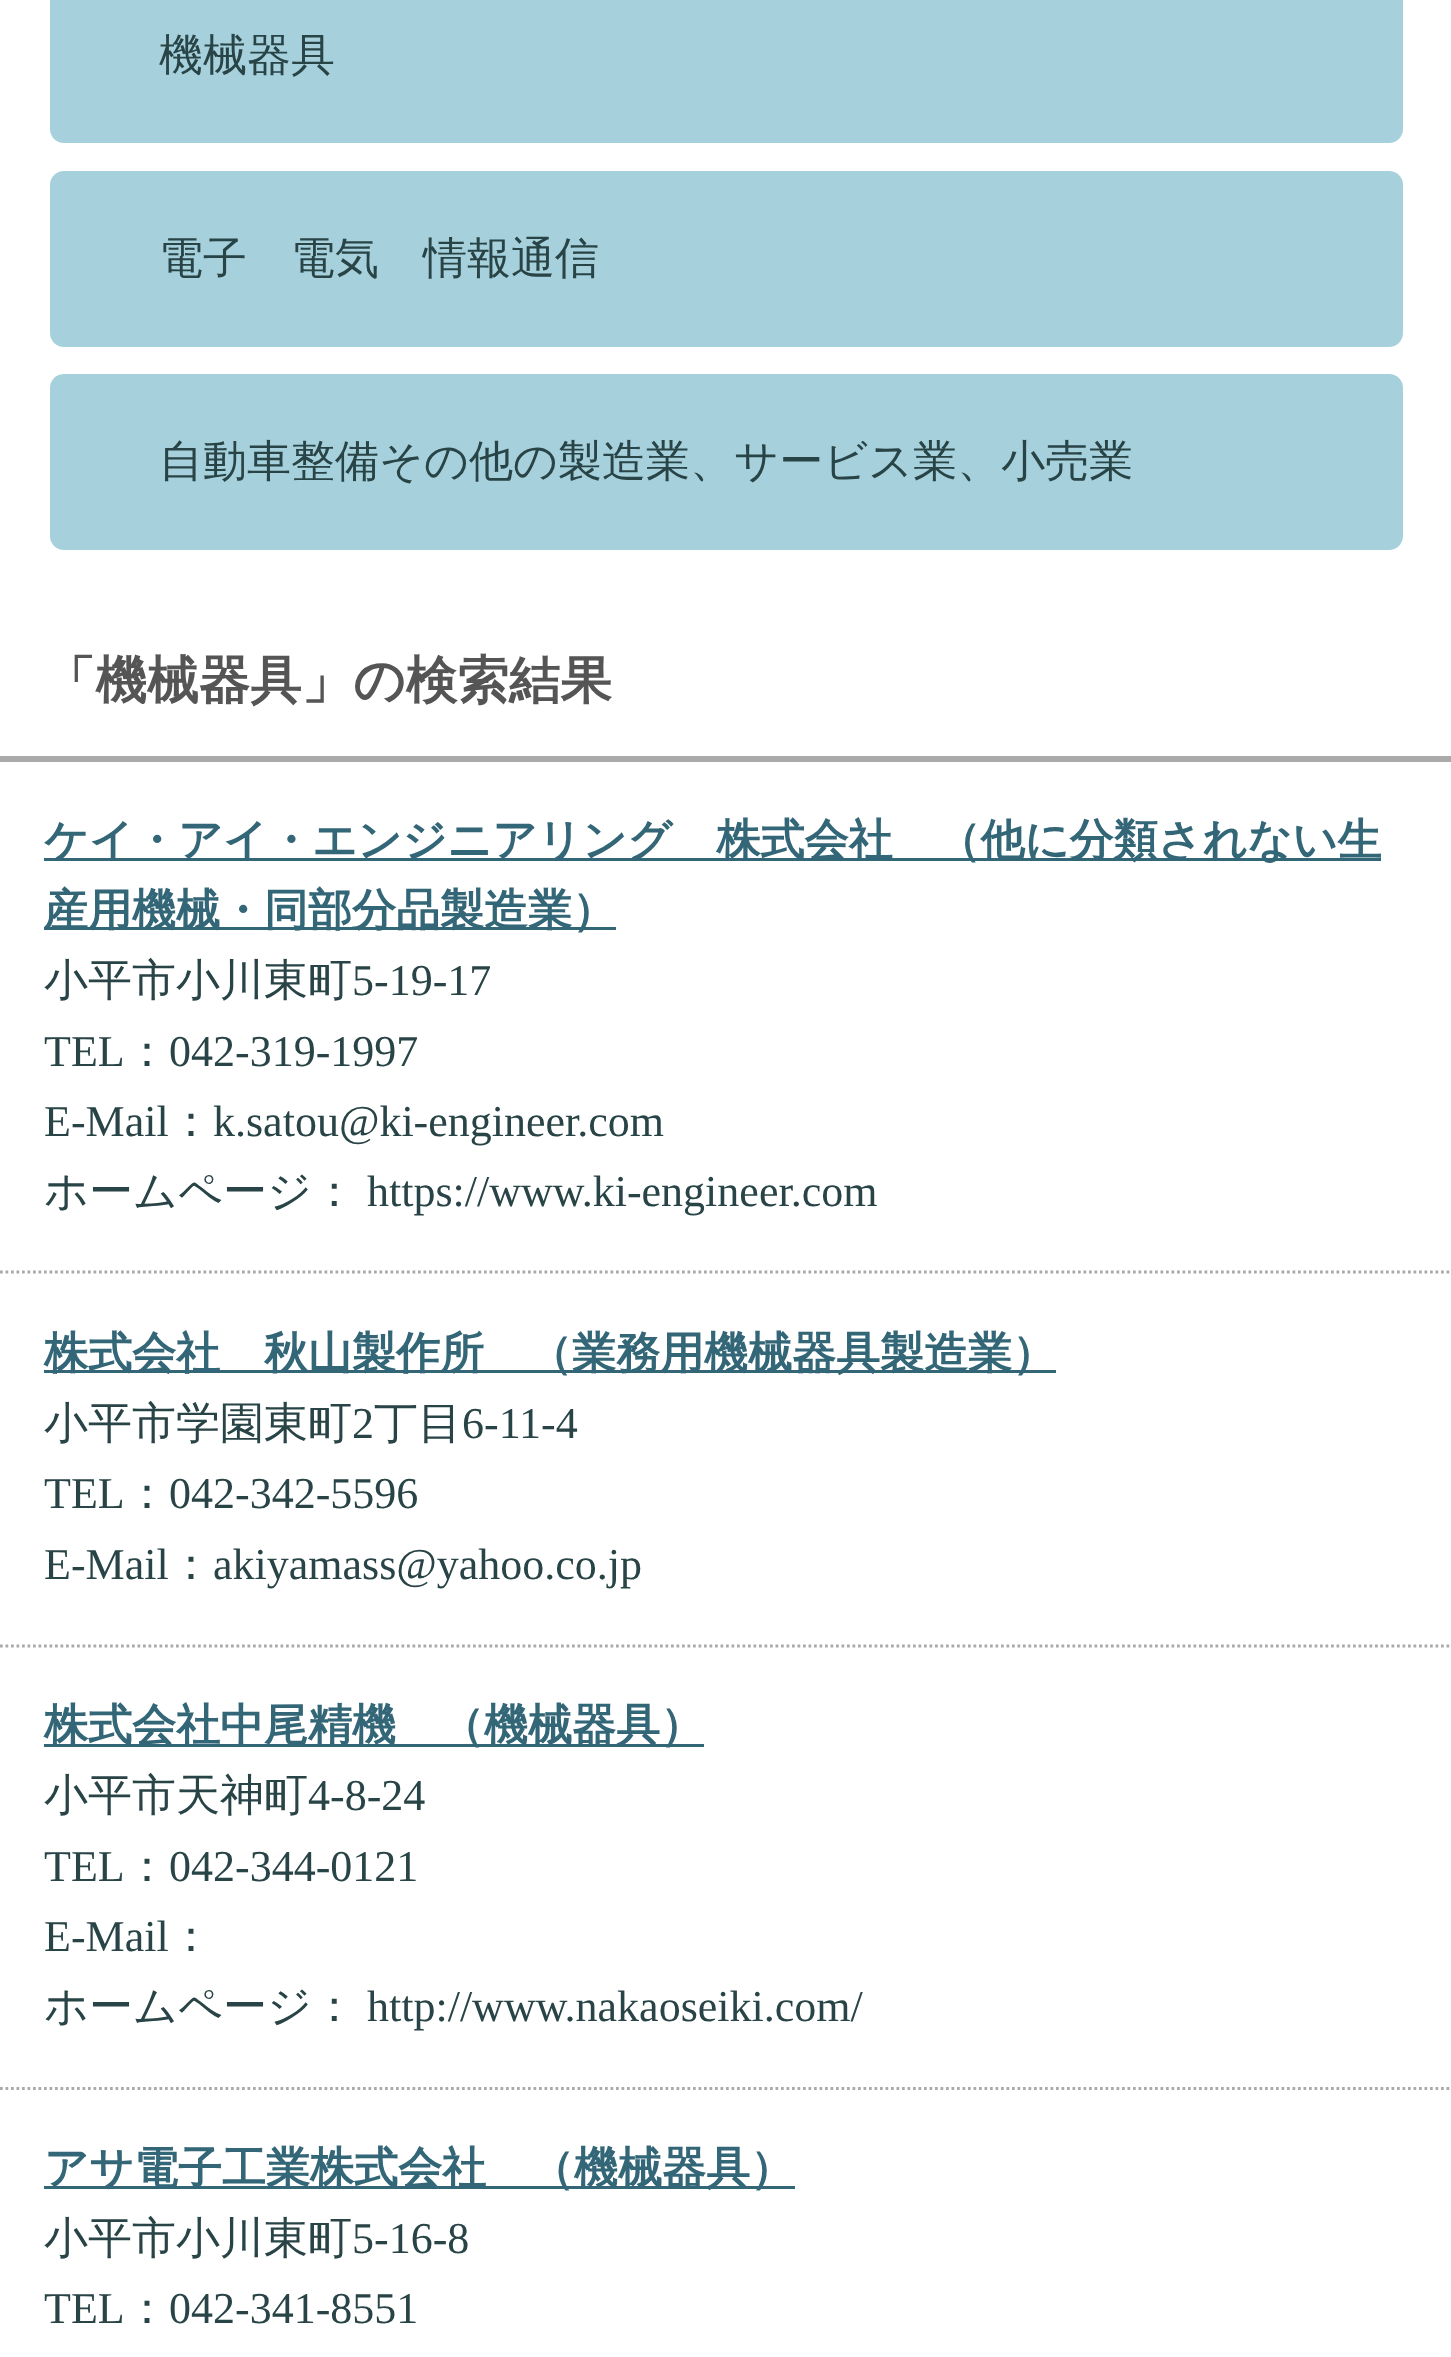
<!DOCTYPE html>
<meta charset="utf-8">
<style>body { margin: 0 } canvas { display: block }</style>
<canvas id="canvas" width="1451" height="2357"></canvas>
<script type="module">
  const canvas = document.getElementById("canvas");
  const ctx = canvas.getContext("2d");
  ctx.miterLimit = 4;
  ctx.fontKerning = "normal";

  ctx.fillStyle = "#ffffff";
  ctx.fillRect(0, 0, 1451, 2357);
  ctx.fillStyle = "#a6d1dc";
  ctx.beginPath();
  ctx.roundRect(50, -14, 1353, 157, 14);
  ctx.fill();
  ctx.font = "500 44px WenQuanYi Zen Hei";
  ctx.fillStyle = "#294446";
  ctx.fillText("機械器具", 159, 70);
  ctx.fillStyle = "#a6d1dc";
  ctx.beginPath();
  ctx.roundRect(50, 171, 1353, 176, 14);
  ctx.fill();
  ctx.fillStyle = "#294446";
  ctx.fillText("電子　電気　情報通信", 159, 273);
  ctx.fillStyle = "#a6d1dc";
  ctx.beginPath();
  ctx.roundRect(50, 374, 1353, 176, 14);
  ctx.fill();
  ctx.fillStyle = "#294446";
  ctx.fillText("自動車整備その他の製造業、サービス業、小売業", 159, 476);
  ctx.fillStyle = "#aaaaaa";
  ctx.fillRect(0, 756, 1451, 6);
  ctx.font = "bold 51.5px WenQuanYi Zen Hei";
  ctx.fillStyle = "#555555";
  ctx.fillText("「機械器具」の検索結果", 44, 698);
  ctx.beginPath();
  ctx.moveTo(0, 1272);
  ctx.lineTo(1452, 1272);
  ctx.strokeStyle = "#aaaaaa";
  ctx.lineWidth = 2.8;
  ctx.setLineDash([2.75, 2.75]);
  ctx.stroke();
  ctx.fillStyle = "#336677";
  ctx.fillRect(44, 858, 1337, 3);
  ctx.font = "bold 44px WenQuanYi Zen Hei";
  ctx.fillText("ケイ・アイ・エンジニアリング　株式会社　（他に分類されない生", 44, 855);
  ctx.fillRect(44, 927, 572, 3);
  ctx.fillText("産用機械・同部分品製造業）", 44, 925);
  ctx.font = "500 44px WenQuanYi Zen Hei";
  ctx.fillStyle = "#294446";
  ctx.fillText("小平市小川東町", 44, 995);
  ctx.font = "44px Liberation Serif";
  ctx.fillText("5-19-17", 352, 995);
  ctx.fillText("TEL", 44, 1066);
  ctx.font = "500 44px WenQuanYi Zen Hei";
  ctx.fillText("：", 125, 1066);
  ctx.font = "44px Liberation Serif";
  ctx.fillText("042-319-1997", 169, 1066);
  ctx.fillText("E-Mail", 44, 1136);
  ctx.font = "500 44px WenQuanYi Zen Hei";
  ctx.fillText("：", 169, 1136);
  ctx.font = "44px Liberation Serif";
  ctx.fillText("k.satou@ki-engineer.com", 213, 1136);
  ctx.font = "500 44px WenQuanYi Zen Hei";
  ctx.fillText("ホームページ：", 44, 1206);
  ctx.font = "44px Liberation Serif";
  ctx.fillText("https://www.ki-engineer.com", 367, 1206);
  ctx.beginPath();
  ctx.moveTo(0, 1646);
  ctx.lineTo(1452, 1646);
  ctx.stroke();
  ctx.fillStyle = "#336677";
  ctx.fillRect(44, 1370, 1012, 3);
  ctx.font = "bold 44px WenQuanYi Zen Hei";
  ctx.fillText("株式会社　秋山製作所　（業務用機械器具製造業）", 44, 1368);
  ctx.font = "500 44px WenQuanYi Zen Hei";
  ctx.fillStyle = "#294446";
  ctx.fillText("小平市学園東町", 44, 1438);
  ctx.font = "44px Liberation Serif";
  ctx.fillText("2", 352, 1438);
  ctx.font = "500 44px WenQuanYi Zen Hei";
  ctx.fillText("丁目", 374, 1438);
  ctx.font = "44px Liberation Serif";
  ctx.fillText("6-11-4", 462, 1438);
  ctx.fillText("TEL", 44, 1508);
  ctx.font = "500 44px WenQuanYi Zen Hei";
  ctx.fillText("：", 125, 1508);
  ctx.font = "44px Liberation Serif";
  ctx.fillText("042-342-5596", 169, 1508);
  ctx.fillText("E-Mail", 44, 1579);
  ctx.font = "500 44px WenQuanYi Zen Hei";
  ctx.fillText("：", 169, 1579);
  ctx.font = "44px Liberation Serif";
  ctx.fillText("akiyamass@yahoo.co.jp", 213, 1579);
  ctx.beginPath();
  ctx.moveTo(0, 2088.5);
  ctx.lineTo(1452, 2088.5);
  ctx.stroke();
  ctx.fillStyle = "#336677";
  ctx.fillRect(44, 1744, 660, 3);
  ctx.font = "bold 44px WenQuanYi Zen Hei";
  ctx.fillText("株式会社中尾精機　（機械器具）", 44, 1740);
  ctx.font = "500 44px WenQuanYi Zen Hei";
  ctx.fillStyle = "#294446";
  ctx.fillText("小平市天神町", 44, 1810);
  ctx.font = "44px Liberation Serif";
  ctx.fillText("4-8-24", 308, 1810);
  ctx.fillText("TEL", 44, 1881);
  ctx.font = "500 44px WenQuanYi Zen Hei";
  ctx.fillText("：", 125, 1881);
  ctx.font = "44px Liberation Serif";
  ctx.fillText("042-344-0121", 169, 1881);
  ctx.fillText("E-Mail", 44, 1951);
  ctx.font = "500 44px WenQuanYi Zen Hei";
  ctx.fillText("：", 169, 1951);
  ctx.fillText("ホームページ：", 44, 2021);
  ctx.font = "44px Liberation Serif";
  ctx.fillText("http://www.nakaoseiki.com/", 367, 2021);
  ctx.fillStyle = "#336677";
  ctx.fillRect(44, 2186, 751, 3);
  ctx.font = "bold 44px WenQuanYi Zen Hei";
  ctx.fillText("アサ電子工業株式会社　（機械器具）", 44, 2183);
  ctx.font = "500 44px WenQuanYi Zen Hei";
  ctx.fillStyle = "#294446";
  ctx.fillText("小平市小川東町", 44, 2253);
  ctx.font = "44px Liberation Serif";
  ctx.fillText("5-16-8", 352, 2253);
  ctx.fillText("TEL", 44, 2323);
  ctx.font = "500 44px WenQuanYi Zen Hei";
  ctx.fillText("：", 125, 2323);
  ctx.font = "44px Liberation Serif";
  ctx.fillText("042-341-8551", 169, 2323);
</script>
